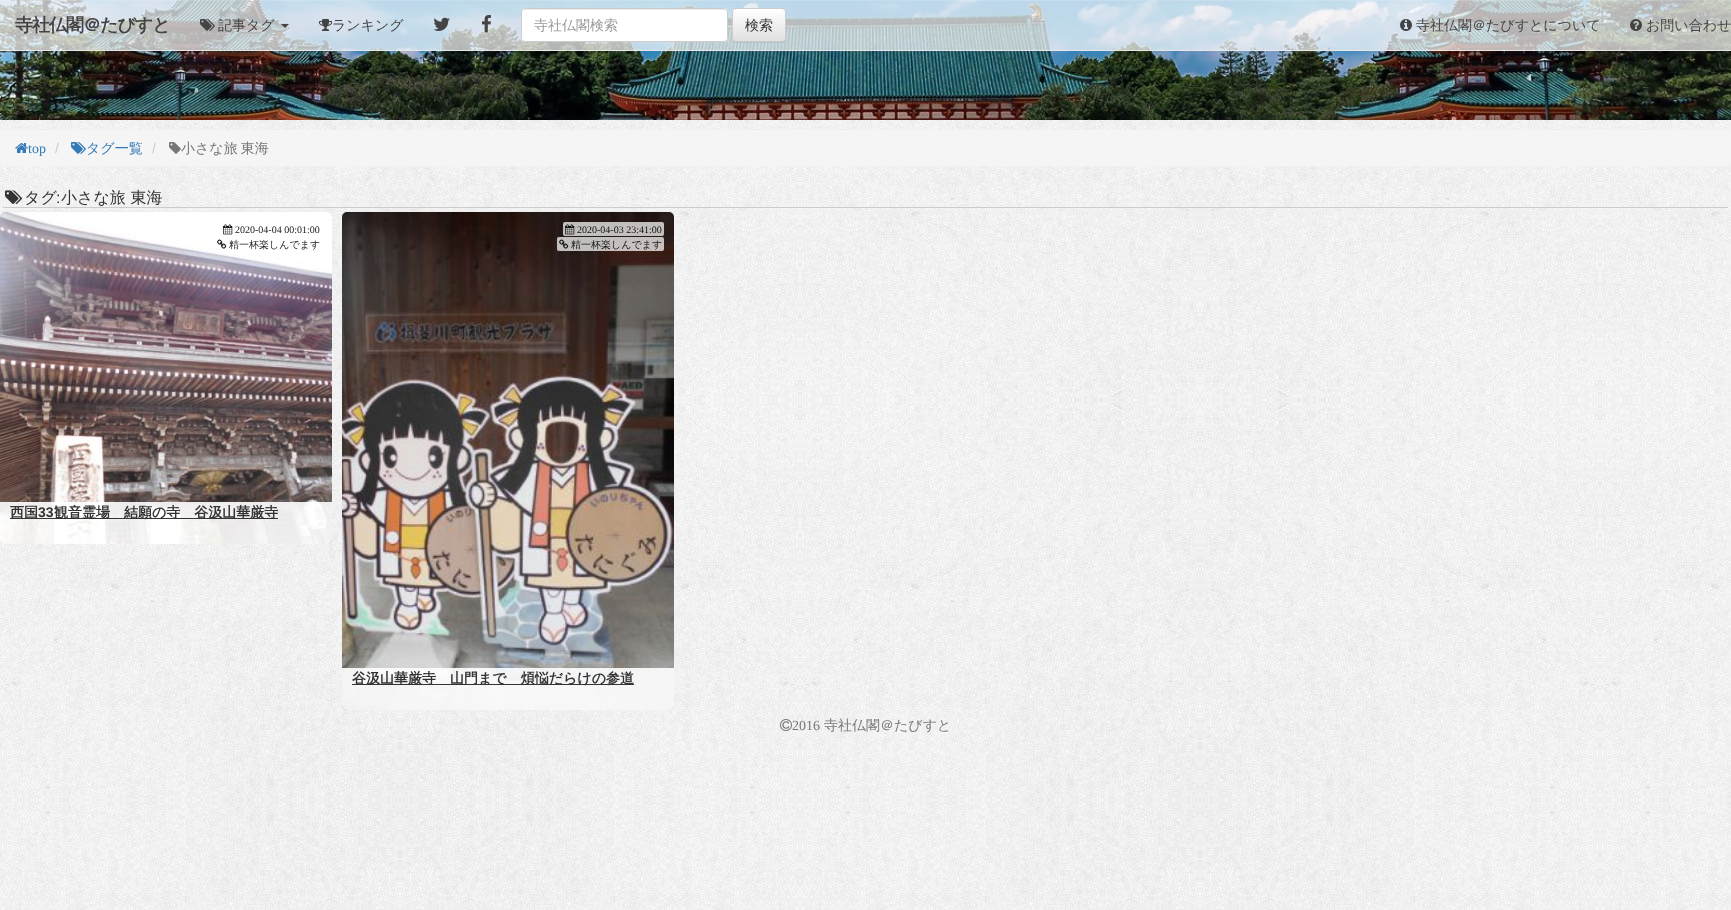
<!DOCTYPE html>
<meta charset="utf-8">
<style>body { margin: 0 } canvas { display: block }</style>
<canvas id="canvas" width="1731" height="910"></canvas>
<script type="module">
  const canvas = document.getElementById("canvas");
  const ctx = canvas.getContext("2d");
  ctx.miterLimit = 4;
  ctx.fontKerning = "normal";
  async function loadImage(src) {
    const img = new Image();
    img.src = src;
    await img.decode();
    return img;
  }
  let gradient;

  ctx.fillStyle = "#ffffff";
  ctx.fillRect(0, 0, 1731, 910);
  ctx.drawImage(await loadImage("img1.png"), 0, 120, 1731, 790);
  ctx.drawImage(await loadImage("img2.png"), 0, 0, 1731, 120);
  ctx.fillStyle = "rgba(255, 255, 255, 0.7)";
  ctx.fillRect(0, 0, 1731, 50);
  ctx.fillStyle = "rgba(255, 255, 255, 0.15)";
  ctx.fillRect(0, 0, 1731, 1);
  ctx.fillStyle = "#e7e7e7";
  ctx.fillRect(0, 50, 1731, 1);
  ctx.letterSpacing = "-1px";
  ctx.font = "bold 18px WenQuanYi Zen Hei";
  ctx.fillStyle = "#444444";
  ctx.fillText("寺社仏閣＠たびすと", 15, 31);
  ctx.drawImage(await loadImage("img3.png"), 200, 19, 15, 12);
  ctx.letterSpacing = "0px";
  ctx.font = "500 14px WenQuanYi Zen Hei";
  ctx.fillText("記事タグ", 218, 30);
  ctx.beginPath();
  ctx.moveTo(281, 24);
  ctx.lineTo(289, 24);
  ctx.lineTo(285, 28);
  ctx.closePath();
  ctx.fill();
  ctx.drawImage(await loadImage("img4.png"), 319, 19, 13, 12);
  ctx.fillText("ランキング", 332, 30);
  ctx.drawImage(await loadImage("img5.png"), 433, 17, 17, 14);
  ctx.drawImage(await loadImage("img6.png"), 482, 15, 9, 18);
  ctx.fillStyle = "#ffffff";
  ctx.beginPath();
  ctx.roundRect(521, 8, 207, 34, 4);
  ctx.fill();
  ctx.fillStyle = "#ececec";
  ctx.beginPath();
  ctx.moveTo(525, 10);
  ctx.lineTo(724, 10);
  ctx.bezierCurveTo(726, 10, 727, 11, 727, 13);
  ctx.bezierCurveTo(727, 11, 726, 9, 724, 9);
  ctx.lineTo(525, 9);
  ctx.bezierCurveTo(523, 9, 522, 11, 522, 13);
  ctx.bezierCurveTo(522, 11, 523, 10, 525, 10);
  ctx.closePath();
  ctx.fill();
  ctx.beginPath();
  ctx.roundRect(521.5, 8.5, 206, 33, 3.5);
  ctx.strokeStyle = "#cccccc";
  ctx.stroke();
  ctx.fillStyle = "#999999";
  ctx.fillText("寺社仏閣検索", 534, 30);
  ctx.fillStyle = "rgba(0, 0, 0, 0.07)";
  ctx.filter = "blur(0.5px)";
  ctx.beginPath();
  ctx.roundRect(732, 9, 54, 34, 4);
  ctx.fill();
  ctx.filter = "none";
  ctx.save();
  ctx.beginPath();
  ctx.roundRect(732, 8, 54, 34, 4);
  ctx.clip();
  gradient = ctx.createLinearGradient(759, 9, 759, 41);
  gradient.addColorStop(0, "#ffffff");
  gradient.addColorStop(1, "#e0e0e0");
  ctx.fillStyle = gradient;
  ctx.fillRect(732, 9, 54, 32);
  ctx.restore();
  ctx.beginPath();
  ctx.roundRect(732.5, 8.5, 53, 33, 3.5);
  ctx.stroke();
  ctx.fillStyle = "#333333";
  ctx.fillText("検索", 745, 30);
  ctx.drawImage(await loadImage("img7.png"), 1400, 19, 12, 12);
  ctx.fillStyle = "#444444";
  ctx.fillText("寺社仏閣＠たびすとについて", 1416, 30);
  ctx.drawImage(await loadImage("img8.png"), 1630, 19, 12, 12);
  ctx.fillText("お問い合わせ", 1646, 30);
  ctx.fillStyle = "#f5f5f5";
  ctx.beginPath();
  ctx.roundRect(0, 130, 1731, 36, 4);
  ctx.fill();
  ctx.drawImage(await loadImage("img9.png"), 15, 143, 13, 10);
  ctx.font = "14px Liberation Serif";
  ctx.fillStyle = "#337ab7";
  ctx.fillText("top", 28, 153);
  ctx.font = "14px Liberation Sans";
  ctx.fillStyle = "#cccccc";
  ctx.fillText("/", 55, 153);
  ctx.drawImage(await loadImage("img10.png"), 71, 142, 15, 12);
  ctx.font = "500 14px WenQuanYi Zen Hei";
  ctx.fillStyle = "#337ab7";
  ctx.fillText("タグ一覧", 86, 153);
  ctx.font = "14px Liberation Sans";
  ctx.fillStyle = "#cccccc";
  ctx.fillText("/", 152, 153);
  ctx.drawImage(await loadImage("img11.png"), 169, 142, 12, 12);
  ctx.wordSpacing = "-1px";
  ctx.font = "500 14px WenQuanYi Zen Hei";
  ctx.fillStyle = "#777777";
  ctx.fillText("小さな旅 東海", 181, 153);
  ctx.fillStyle = "#eeeeee";
  ctx.fillRect(0, 211, 1731, 1);
  ctx.fillStyle = "#cccccc";
  ctx.fillRect(3, 207, 1725, 1);
  ctx.drawImage(await loadImage("img12.png"), 5, 190, 17, 14);
  ctx.wordSpacing = "0px";
  ctx.font = "500 16px WenQuanYi Zen Hei";
  ctx.fillStyle = "#333333";
  ctx.fillText("タグ", 24, 203);
  ctx.font = "16px Liberation Sans";
  ctx.fillText(":", 56, 203);
  ctx.font = "500 16px WenQuanYi Zen Hei";
  ctx.fillText("小さな旅 東海", 61, 203);
  ctx.drawImage(await loadImage("img13.png"), 0, 212, 332, 332);
  ctx.drawImage(await loadImage("img14.png"), 223, 224, 10, 11);
  ctx.font = "10px Liberation Serif";
  ctx.fillStyle = "#1a1a1a";
  ctx.fillText("2020-04-04 00:01:00", 235, 233);
  ctx.drawImage(await loadImage("img15.png"), 217, 239, 10, 10);
  ctx.font = "500 10px WenQuanYi Zen Hei";
  ctx.fillText("精一杯楽しんでます", 229, 248);
  ctx.fillStyle = "rgba(255, 255, 255, 0.9)";
  ctx.beginPath();
  ctx.roundRect(0, 502, 332, 42, [0, 0, 5, 5]);
  ctx.fill();
  ctx.fillStyle = "#333333";
  ctx.fillRect(10, 518, 268, 1);
  ctx.font = "bold 14px WenQuanYi Zen Hei";
  ctx.fillText("西国", 10, 517);
  ctx.font = "bold 14px Liberation Sans";
  ctx.fillText("33", 38, 517);
  ctx.font = "bold 14px WenQuanYi Zen Hei";
  ctx.fillText("観音霊場　結願の寺　谷汲山華厳寺", 54, 517);
  ctx.drawImage(await loadImage("img16.png"), 342, 212, 332, 498);
  ctx.fillStyle = "rgba(255, 255, 255, 0.72)";
  ctx.beginPath();
  ctx.roundRect(563, 222, 101, 14, 2);
  ctx.fill();
  ctx.drawImage(await loadImage("img17.png"), 565, 224, 10, 11);
  ctx.font = "10px Liberation Serif";
  ctx.fillStyle = "#131313";
  ctx.fillText("2020-04-03 23:41:00", 577, 233);
  ctx.fillStyle = "rgba(255, 255, 255, 0.72)";
  ctx.beginPath();
  ctx.roundRect(557, 237, 107, 14, 2);
  ctx.fill();
  ctx.drawImage(await loadImage("img18.png"), 559, 239, 10, 10);
  ctx.font = "500 10px WenQuanYi Zen Hei";
  ctx.fillStyle = "#131313";
  ctx.fillText("精一杯楽しんでます", 571, 248);
  ctx.fillStyle = "rgba(255, 255, 255, 0.9)";
  ctx.beginPath();
  ctx.roundRect(342, 668, 332, 42, [0, 0, 5, 5]);
  ctx.fill();
  ctx.fillStyle = "#333333";
  ctx.fillRect(352, 684, 282, 1);
  ctx.font = "bold 14px WenQuanYi Zen Hei";
  ctx.fillText("谷汲山華厳寺　山門まで　煩悩だらけの参道", 352, 683);
  ctx.drawImage(await loadImage("img19.png"), 780, 719, 12, 12);
  ctx.font = "14px Liberation Serif";
  ctx.fillStyle = "#777777";
  ctx.fillText("2016", 792, 730);
  ctx.font = "500 14px WenQuanYi Zen Hei";
  ctx.fillText("寺社仏閣＠たびすと", 824, 730);
</script>
